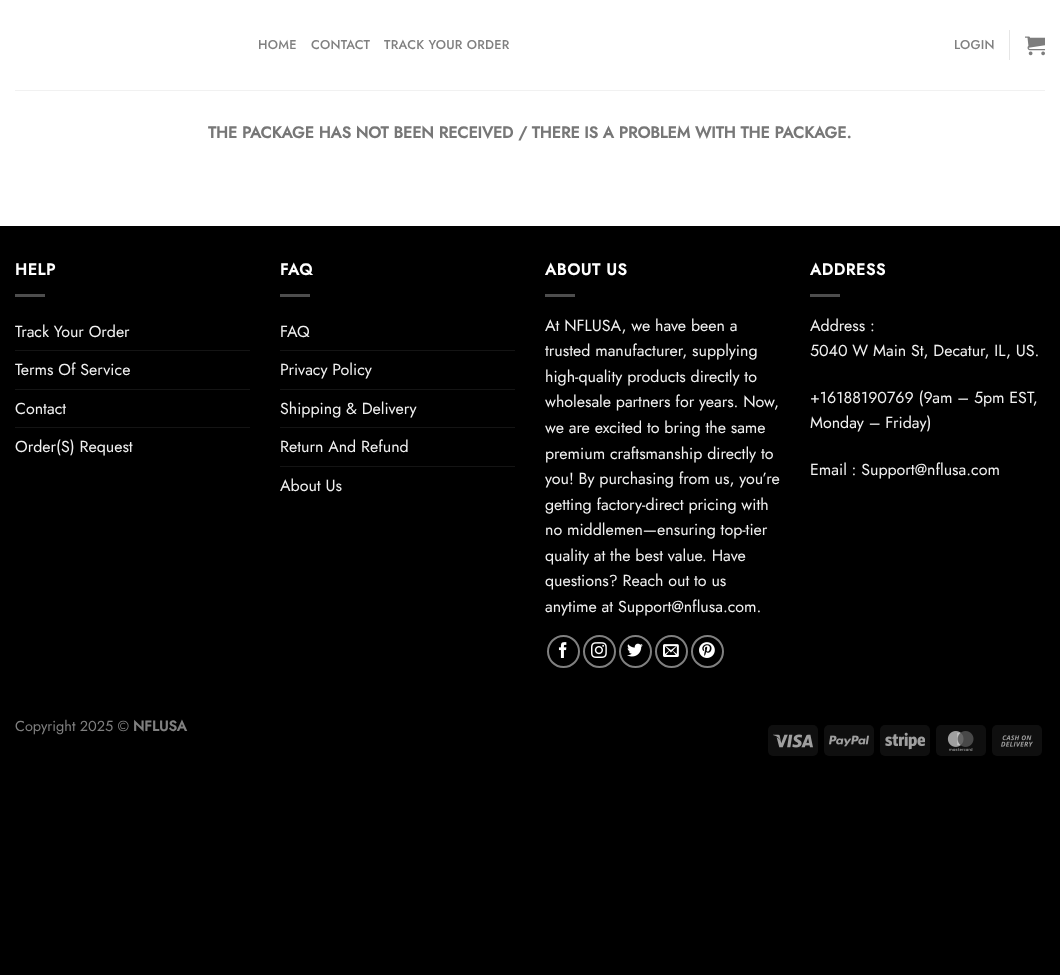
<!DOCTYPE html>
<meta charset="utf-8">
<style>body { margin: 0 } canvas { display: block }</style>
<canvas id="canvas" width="1060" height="975"></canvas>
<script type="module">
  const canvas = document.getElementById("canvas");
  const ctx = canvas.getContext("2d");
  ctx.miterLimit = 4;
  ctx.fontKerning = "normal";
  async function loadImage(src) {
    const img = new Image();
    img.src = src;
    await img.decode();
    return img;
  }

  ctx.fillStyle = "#000000";
  ctx.fillRect(0, 0, 1060, 975);
  ctx.fillStyle = "#ffffff";
  ctx.fillRect(0, 0, 1060, 226);
  ctx.letterSpacing = "0.25px";
  ctx.font = "500 12.75px Jost";
  ctx.fillStyle = "#808080";
  ctx.fillText("HOME", 258, 49);
  ctx.fillText("CONTACT", 311, 49);
  ctx.fillText("TRACK YOUR ORDER", 384, 49);
  ctx.fillText("LOGIN", 954, 49);
  ctx.fillStyle = "#e6e6e6";
  ctx.fillRect(1009, 30, 1, 30);
  ctx.drawImage(await loadImage("img1.png"), 1025, 36, 20, 20);
  ctx.fillStyle = "#f1f1f1";
  ctx.fillRect(15, 90, 1030, 1);
  ctx.letterSpacing = "0px";
  ctx.font = "bold 16px Jost";
  ctx.fillStyle = "#777777";
  ctx.fillText("THE PACKAGE HAS NOT BEEN RECEIVED / THERE IS A PROBLEM WITH THE PACKAGE.", 208, 138);
  ctx.letterSpacing = "0.75px";
  ctx.fillStyle = "#ffffff";
  ctx.fillText("HELP", 15, 275);
  ctx.fillStyle = "#4d4d4d";
  ctx.fillRect(15, 294, 30, 3);
  ctx.letterSpacing = "0px";
  ctx.font = "16px Jost";
  ctx.fillStyle = "#f1f1f1";
  ctx.fillText("Track Your Order", 15, 337);
  ctx.fillStyle = "#141414";
  ctx.fillRect(15, 350, 235, 1);
  ctx.fillStyle = "#f1f1f1";
  ctx.fillText("Terms Of Service", 15, 375);
  ctx.fillStyle = "#141414";
  ctx.fillRect(15, 389, 235, 1);
  ctx.fillStyle = "#f1f1f1";
  ctx.fillText("Contact", 15, 414);
  ctx.fillStyle = "#141414";
  ctx.fillRect(15, 427, 235, 1);
  ctx.fillStyle = "#f1f1f1";
  ctx.fillText("Order(S) Request", 15, 452);
  ctx.letterSpacing = "0.75px";
  ctx.font = "bold 16px Jost";
  ctx.fillStyle = "#ffffff";
  ctx.fillText("FAQ", 280, 275);
  ctx.fillStyle = "#4d4d4d";
  ctx.fillRect(280, 294, 30, 3);
  ctx.letterSpacing = "0px";
  ctx.font = "16px Jost";
  ctx.fillStyle = "#f1f1f1";
  ctx.fillText("FAQ", 280, 337);
  ctx.fillStyle = "#141414";
  ctx.fillRect(280, 350, 235, 1);
  ctx.fillStyle = "#f1f1f1";
  ctx.fillText("Privacy Policy", 280, 375);
  ctx.fillStyle = "#141414";
  ctx.fillRect(280, 389, 235, 1);
  ctx.fillStyle = "#f1f1f1";
  ctx.fillText("Shipping & Delivery", 280, 414);
  ctx.fillStyle = "#141414";
  ctx.fillRect(280, 427, 235, 1);
  ctx.fillStyle = "#f1f1f1";
  ctx.fillText("Return And Refund", 280, 452);
  ctx.fillStyle = "#141414";
  ctx.fillRect(280, 466, 235, 1);
  ctx.fillStyle = "#f1f1f1";
  ctx.fillText("About Us", 280, 491);
  ctx.letterSpacing = "0.75px";
  ctx.font = "bold 16px Jost";
  ctx.fillStyle = "#ffffff";
  ctx.fillText("ABOUT US", 545, 275);
  ctx.fillStyle = "#4d4d4d";
  ctx.fillRect(545, 294, 30, 3);
  ctx.letterSpacing = "0px";
  ctx.font = "16px Jost";
  ctx.fillStyle = "#f1f1f1";
  ctx.fillText("At NFLUSA, we have been a", 545, 331);
  ctx.fillText("trusted manufacturer, supplying", 545, 356);
  ctx.fillText("high-quality products directly to", 545, 382);
  ctx.fillText("wholesale partners for years. Now,", 545, 407);
  ctx.fillText("we are excited to bring the same", 545, 433);
  ctx.fillText("premium craftsmanship directly to", 545, 459);
  ctx.fillText("you! By purchasing from us, you’re", 545, 484);
  ctx.fillText("getting factory-direct pricing with", 545, 510);
  ctx.fillText("no middlemen—ensuring top-tier", 545, 535);
  ctx.fillText("quality at the best value. Have", 545, 561);
  ctx.fillText("questions? Reach out to us", 545, 586);
  ctx.fillText("anytime at Support@nflusa.com.", 545, 612);
  ctx.beginPath();
  ctx.arc(563.5, 651.5, 15.5, 0, Math.PI * 2);
  ctx.strokeStyle = "#808080";
  ctx.lineWidth = 2;
  ctx.stroke();
  ctx.drawImage(await loadImage("img2.png"), 558, 642, 9, 16);
  ctx.beginPath();
  ctx.arc(599.5, 651.5, 15.5, 0, Math.PI * 2);
  ctx.stroke();
  ctx.drawImage(await loadImage("img3.png"), 591, 642, 16, 16);
  ctx.beginPath();
  ctx.arc(635.5, 651.5, 15.5, 0, Math.PI * 2);
  ctx.stroke();
  ctx.drawImage(await loadImage("img4.png"), 627, 643, 16, 14);
  ctx.beginPath();
  ctx.arc(671.5, 651.5, 15.5, 0, Math.PI * 2);
  ctx.stroke();
  ctx.drawImage(await loadImage("img5.png"), 663, 644, 16, 13);
  ctx.beginPath();
  ctx.arc(707.5, 651.5, 15.5, 0, Math.PI * 2);
  ctx.stroke();
  ctx.drawImage(await loadImage("img6.png"), 699, 642, 16, 16);
  ctx.letterSpacing = "0.75px";
  ctx.font = "bold 16px Jost";
  ctx.fillStyle = "#ffffff";
  ctx.fillText("ADDRESS", 810, 275);
  ctx.fillStyle = "#4d4d4d";
  ctx.fillRect(810, 294, 30, 3);
  ctx.letterSpacing = "0px";
  ctx.font = "16px Jost";
  ctx.fillStyle = "#f1f1f1";
  ctx.fillText("Address :", 810, 331);
  ctx.fillText("5040 W Main St, Decatur, IL, US.", 810, 356);
  ctx.fillText("+16188190769 (9am – 5pm EST,", 810, 403);
  ctx.fillText("Monday – Friday)", 810, 428);
  ctx.fillText("Email : Support@nflusa.com", 810, 475);
  ctx.font = "14.5px Jost";
  ctx.fillStyle = "#808080";
  ctx.fillText("Copyright 2025 ©", 15, 731);
  ctx.font = "bold 14.5px Jost";
  ctx.fillText("NFLUSA", 133, 731);
  ctx.fillStyle = "#0f0f0f";
  ctx.beginPath();
  ctx.roundRect(768, 725, 50, 31, 5);
  ctx.fill();
  ctx.drawImage(await loadImage("img7.png"), 773, 734, 40, 14);
  ctx.beginPath();
  ctx.roundRect(824, 725, 50, 31, 5);
  ctx.fill();
  ctx.drawImage(await loadImage("img8.png"), 829, 735, 40, 12);
  ctx.beginPath();
  ctx.roundRect(880, 725, 50, 31, 5);
  ctx.fill();
  ctx.drawImage(await loadImage("img9.png"), 885, 732, 40, 18);
  ctx.beginPath();
  ctx.roundRect(936, 725, 50, 31, 5);
  ctx.fill();
  ctx.drawImage(await loadImage("img10.png"), 947, 731, 27, 20);
  ctx.beginPath();
  ctx.roundRect(992, 725, 50, 31, 5);
  ctx.fill();
  ctx.drawImage(await loadImage("img11.png"), 1001, 735, 32, 12);
</script>
